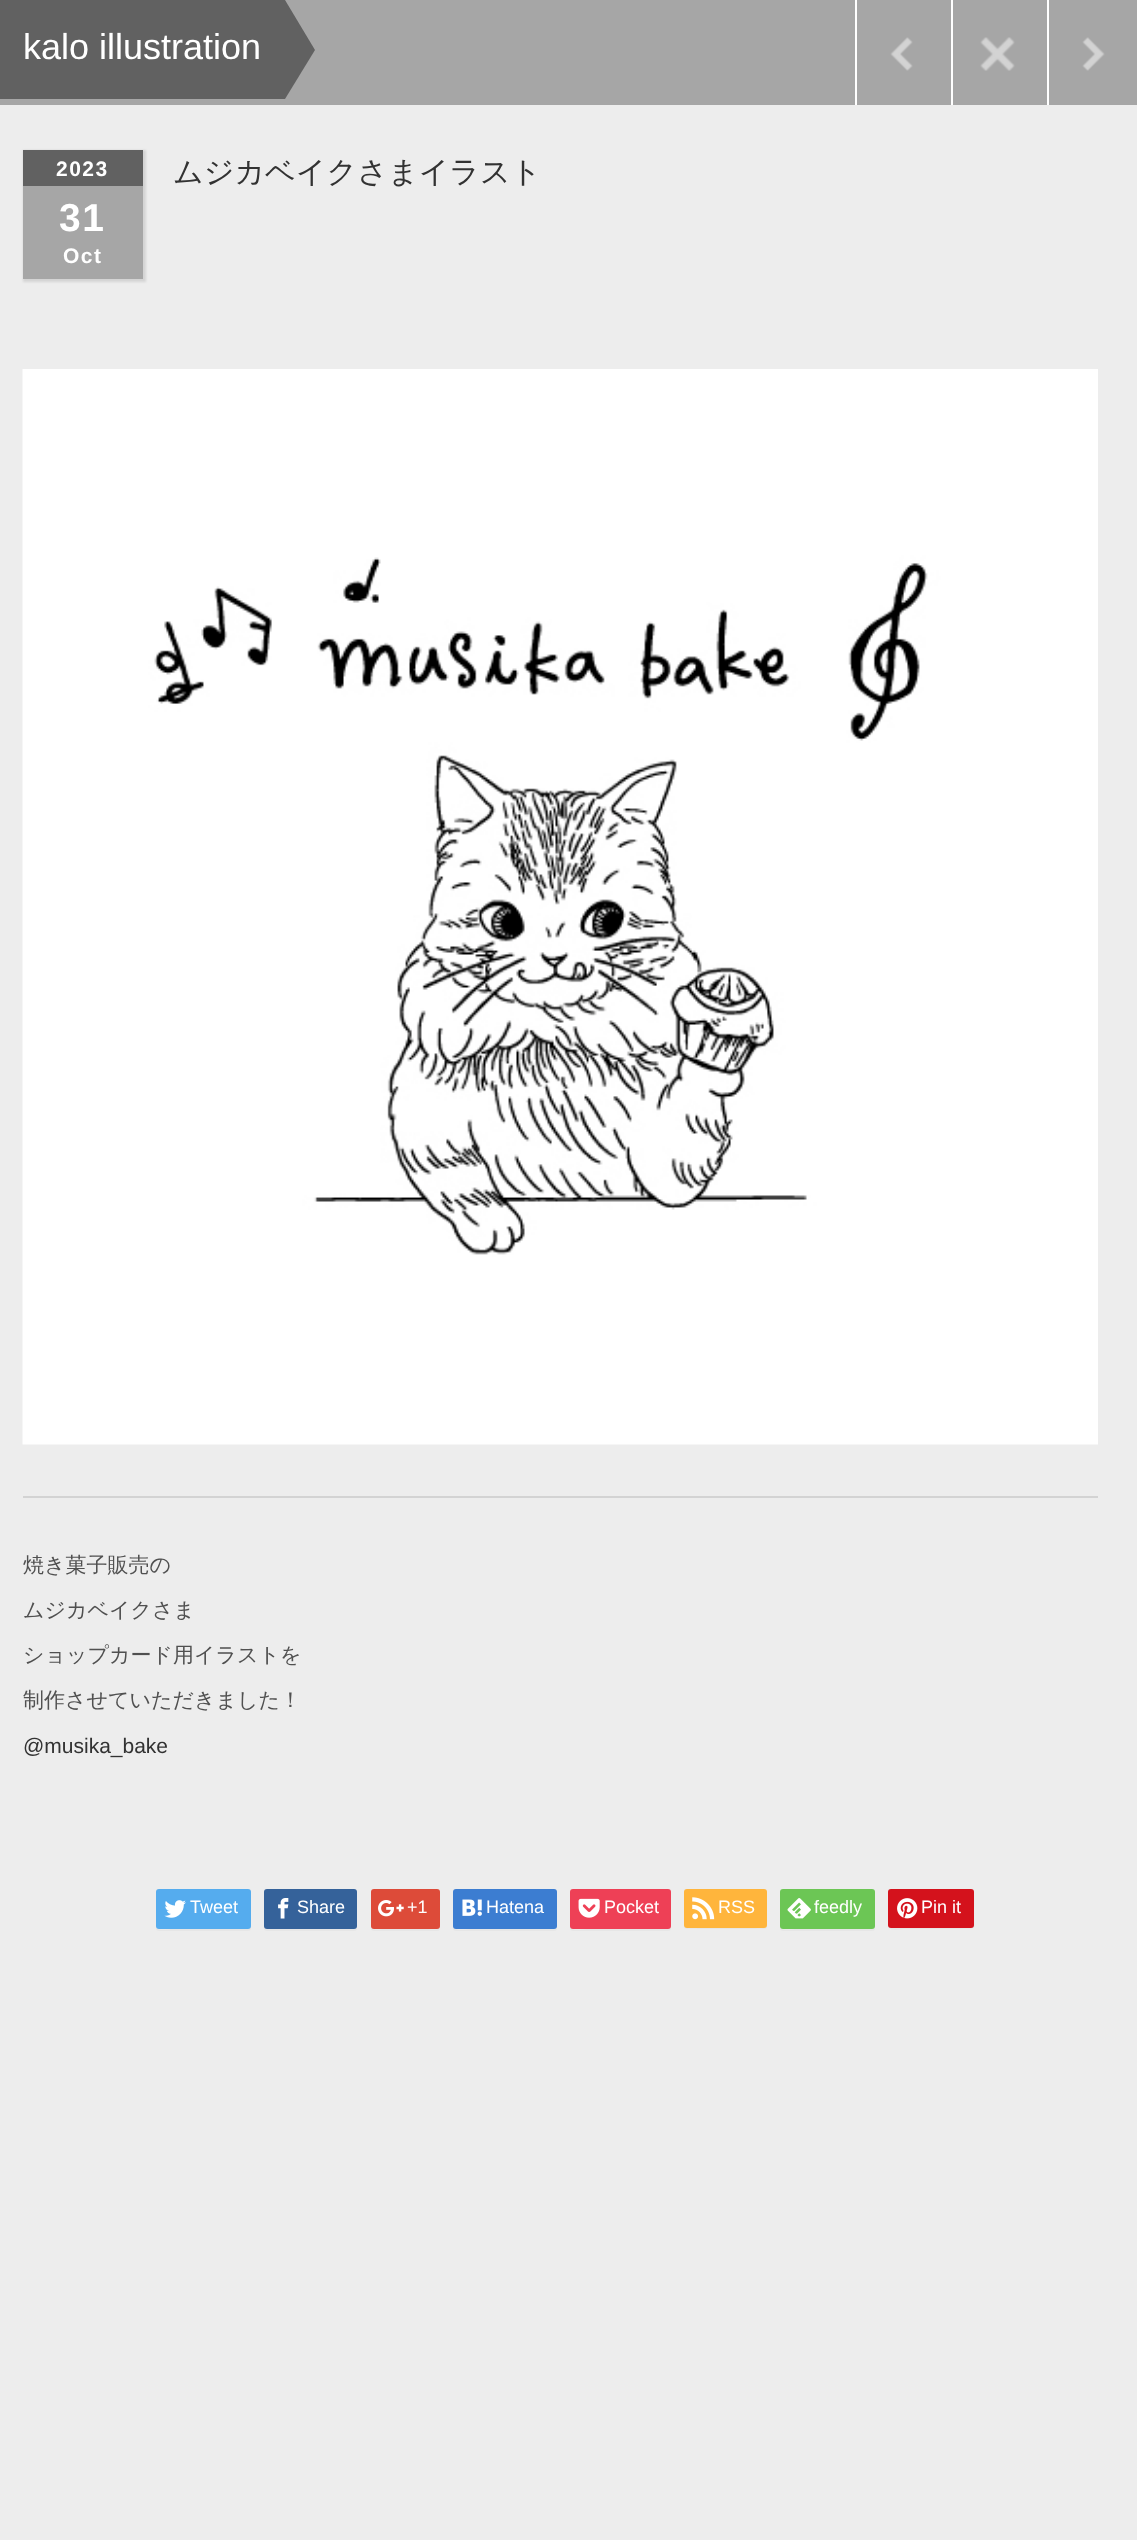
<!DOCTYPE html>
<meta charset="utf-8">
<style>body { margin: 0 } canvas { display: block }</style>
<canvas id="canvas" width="1137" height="2540"></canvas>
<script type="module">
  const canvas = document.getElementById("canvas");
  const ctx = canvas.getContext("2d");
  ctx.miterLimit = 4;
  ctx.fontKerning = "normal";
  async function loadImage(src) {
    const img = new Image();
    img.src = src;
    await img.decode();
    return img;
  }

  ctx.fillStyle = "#ededed";
  ctx.fillRect(0, 0, 1137, 2540);
  ctx.fillStyle = "#a6a6a6";
  ctx.fillRect(0, 0, 1137, 105);
  ctx.fillStyle = "#616161";
  ctx.fillRect(0, 0, 285, 99);
  ctx.font = "36px Liberation Sans";
  ctx.fillStyle = "#ffffff";
  ctx.fillText("kalo illustration", 23, 59);
  ctx.fillStyle = "#616161";
  ctx.beginPath();
  ctx.moveTo(285, 99);
  ctx.lineTo(285, 0);
  ctx.lineTo(315, 50);
  ctx.closePath();
  ctx.fill();
  ctx.fillStyle = "#ffffff";
  ctx.fillRect(855, 0, 2, 105);
  ctx.drawImage(await loadImage("img1.png"), 890, 37, 23, 34);
  ctx.fillRect(951, 0, 2, 105);
  ctx.drawImage(await loadImage("img2.png"), 980, 37, 35, 34);
  ctx.fillRect(1047, 0, 2, 105);
  ctx.drawImage(await loadImage("img3.png"), 1082, 37, 23, 34);
  ctx.fillStyle = "rgba(0, 0, 0, 0.1)";
  ctx.filter = "blur(1px)";
  ctx.beginPath();
  ctx.rect(23, 150, 123, 132);
  ctx.fill();
  ctx.filter = "none";
  ctx.fillStyle = "#a6a6a6";
  ctx.fillRect(23, 186, 120, 93);
  ctx.fillStyle = "#616161";
  ctx.fillRect(23, 150, 120, 36);
  ctx.letterSpacing = "1.5px";
  ctx.font = "bold 21px Liberation Sans";
  ctx.fillStyle = "#ffffff";
  ctx.fillText("2023", 56, 176);
  ctx.font = "bold 39px Liberation Sans";
  ctx.fillText("31", 59, 231);
  ctx.font = "bold 21px Liberation Sans";
  ctx.fillText("Oct", 63, 263);
  ctx.letterSpacing = "0px";
  ctx.font = "500 30px WenQuanYi Zen Hei";
  ctx.fillStyle = "#323232";
  ctx.fillText("ムジカベイクさまイラスト", 173, 182);
  ctx.drawImage(await loadImage("img4.png"), 22, 369, 1076, 1076);
  ctx.fillStyle = "#d3d3d3";
  ctx.fillRect(23, 1496, 1075, 2);
  ctx.font = "500 21px WenQuanYi Zen Hei";
  ctx.fillStyle = "#505050";
  ctx.fillText("焼き菓子販売の", 23, 1572);
  ctx.fillText("ムジカベイクさま", 23, 1617);
  ctx.fillText("ショップカード用イラストを", 23, 1662);
  ctx.fillText("制作させていただきました！", 23, 1707);
  ctx.font = "21px Liberation Sans";
  ctx.fillStyle = "#323232";
  ctx.fillText("@musika_bake", 23, 1753);
  ctx.fillStyle = "#e6e6e6";
  ctx.beginPath();
  ctx.moveTo(156, 1926);
  ctx.lineTo(156, 1928);
  ctx.bezierCurveTo(156, 1930, 157, 1931, 159, 1931);
  ctx.lineTo(248, 1931);
  ctx.bezierCurveTo(250, 1931, 251, 1930, 251, 1928);
  ctx.lineTo(251, 1893);
  ctx.lineTo(250, 1891);
  ctx.lineTo(250, 1920);
  ctx.bezierCurveTo(250, 1922, 252, 1929, 248, 1929);
  ctx.lineTo(174, 1929);
  ctx.bezierCurveTo(167, 1929, 156, 1932, 156, 1926);
  ctx.closePath();
  ctx.fill();
  ctx.fillStyle = "#55acee";
  ctx.beginPath();
  ctx.roundRect(156, 1889, 95, 40, 3);
  ctx.fill();
  ctx.drawImage(await loadImage("img5.png"), 164, 1900, 22, 18);
  ctx.font = "18px Liberation Sans";
  ctx.fillStyle = "#ffffff";
  ctx.fillText("Tweet", 190, 1913);
  ctx.fillStyle = "#e6e6e6";
  ctx.beginPath();
  ctx.moveTo(264, 1926);
  ctx.lineTo(264, 1928);
  ctx.bezierCurveTo(264, 1930, 265, 1931, 267, 1931);
  ctx.lineTo(354, 1931);
  ctx.bezierCurveTo(356, 1931, 357, 1930, 357, 1928);
  ctx.lineTo(357, 1926);
  ctx.bezierCurveTo(357, 1928, 356, 1929, 354, 1929);
  ctx.lineTo(267, 1929);
  ctx.bezierCurveTo(265, 1929, 264, 1928, 264, 1926);
  ctx.closePath();
  ctx.fill();
  ctx.fillStyle = "#35629a";
  ctx.beginPath();
  ctx.roundRect(264, 1889, 93, 40, 3);
  ctx.fill();
  ctx.drawImage(await loadImage("img6.png"), 278, 1898, 11, 21);
  ctx.fillStyle = "#ffffff";
  ctx.fillText("Share", 297, 1913);
  ctx.fillStyle = "#e6e6e6";
  ctx.beginPath();
  ctx.moveTo(371, 1928);
  ctx.bezierCurveTo(371, 1930, 372, 1931, 374, 1931);
  ctx.lineTo(437, 1931);
  ctx.bezierCurveTo(439, 1931, 440, 1930, 440, 1928);
  ctx.lineTo(440, 1893);
  ctx.lineTo(439, 1891);
  ctx.lineTo(440, 1920);
  ctx.bezierCurveTo(440, 1932, 439, 1929, 426, 1929);
  ctx.lineTo(384, 1929);
  ctx.bezierCurveTo(382, 1929, 373, 1931, 371, 1928);
  ctx.closePath();
  ctx.fill();
  ctx.fillStyle = "#dd4b39";
  ctx.beginPath();
  ctx.roundRect(371, 1889, 69, 40, 3);
  ctx.fill();
  ctx.drawImage(await loadImage("img7.png"), 378, 1900, 26, 17);
  ctx.fillStyle = "#ffffff";
  ctx.fillText("+1", 407, 1913);
  ctx.fillStyle = "#e6e6e6";
  ctx.beginPath();
  ctx.moveTo(453, 1926);
  ctx.lineTo(453, 1928);
  ctx.bezierCurveTo(453, 1930, 454, 1931, 456, 1931);
  ctx.lineTo(554, 1931);
  ctx.bezierCurveTo(556, 1931, 557, 1930, 557, 1928);
  ctx.lineTo(557, 1893);
  ctx.lineTo(556, 1891);
  ctx.lineTo(556, 1920);
  ctx.bezierCurveTo(556, 1922, 558, 1929, 554, 1929);
  ctx.lineTo(472, 1929);
  ctx.bezierCurveTo(466, 1929, 453, 1932, 453, 1926);
  ctx.closePath();
  ctx.fill();
  ctx.fillStyle = "#3c7dd1";
  ctx.beginPath();
  ctx.roundRect(453, 1889, 104, 40, 3);
  ctx.fill();
  ctx.drawImage(await loadImage("img8.png"), 462, 1899, 20, 17);
  ctx.fillStyle = "#ffffff";
  ctx.fillText("Hatena", 486, 1913);
  ctx.fillStyle = "#e6e6e6";
  ctx.beginPath();
  ctx.moveTo(570, 1926);
  ctx.lineTo(570, 1928);
  ctx.bezierCurveTo(570, 1930, 571, 1931, 573, 1931);
  ctx.lineTo(668, 1931);
  ctx.bezierCurveTo(670, 1931, 671, 1930, 671, 1928);
  ctx.lineTo(671, 1893);
  ctx.lineTo(670, 1891);
  ctx.lineTo(670, 1920);
  ctx.bezierCurveTo(670, 1922, 672, 1929, 668, 1929);
  ctx.lineTo(589, 1929);
  ctx.bezierCurveTo(583, 1929, 570, 1932, 570, 1926);
  ctx.closePath();
  ctx.fill();
  ctx.fillStyle = "#ee4056";
  ctx.beginPath();
  ctx.roundRect(570, 1889, 101, 40, 3);
  ctx.fill();
  ctx.drawImage(await loadImage("img9.png"), 578, 1898, 22, 20);
  ctx.fillStyle = "#ffffff";
  ctx.fillText("Pocket", 604, 1913);
  ctx.fillStyle = "#e6e6e6";
  ctx.beginPath();
  ctx.moveTo(684, 1924);
  ctx.lineTo(684, 1926);
  ctx.bezierCurveTo(684, 1928, 685, 1929, 687, 1929);
  ctx.lineTo(764, 1929);
  ctx.bezierCurveTo(766, 1929, 767, 1928, 767, 1926);
  ctx.lineTo(767, 1893);
  ctx.lineTo(766, 1891);
  ctx.lineTo(766, 1919);
  ctx.bezierCurveTo(766, 1931, 765, 1928, 751, 1928);
  ctx.lineTo(700, 1928);
  ctx.bezierCurveTo(694, 1928, 684, 1930, 684, 1924);
  ctx.closePath();
  ctx.fill();
  ctx.fillStyle = "#ffb53c";
  ctx.beginPath();
  ctx.roundRect(684, 1889, 83, 39, 3);
  ctx.fill();
  ctx.drawImage(await loadImage("img10.png"), 692, 1897, 23, 23);
  ctx.fillStyle = "#ffffff";
  ctx.fillText("RSS", 718, 1913);
  ctx.fillStyle = "#e6e6e6";
  ctx.beginPath();
  ctx.moveTo(780, 1926);
  ctx.lineTo(780, 1928);
  ctx.bezierCurveTo(780, 1930, 781, 1931, 783, 1931);
  ctx.lineTo(872, 1931);
  ctx.bezierCurveTo(874, 1931, 875, 1930, 875, 1928);
  ctx.lineTo(875, 1893);
  ctx.lineTo(874, 1891);
  ctx.lineTo(874, 1920);
  ctx.bezierCurveTo(874, 1922, 876, 1929, 872, 1929);
  ctx.lineTo(798, 1929);
  ctx.bezierCurveTo(791, 1929, 780, 1932, 780, 1926);
  ctx.closePath();
  ctx.fill();
  ctx.fillStyle = "#6cc655";
  ctx.beginPath();
  ctx.roundRect(780, 1889, 95, 40, 3);
  ctx.fill();
  ctx.drawImage(await loadImage("img11.png"), 787, 1898, 24, 21);
  ctx.fillStyle = "#ffffff";
  ctx.fillText("feedly", 814, 1913);
  ctx.fillStyle = "#e6e6e6";
  ctx.beginPath();
  ctx.moveTo(888, 1924);
  ctx.bezierCurveTo(888, 1933, 899, 1929, 904, 1929);
  ctx.lineTo(958, 1929);
  ctx.bezierCurveTo(979, 1929, 974, 1931, 974, 1910);
  ctx.bezierCurveTo(974, 1906, 975, 1894, 973, 1891);
  ctx.lineTo(974, 1919);
  ctx.bezierCurveTo(974, 1931, 972, 1928, 957, 1928);
  ctx.lineTo(890, 1927);
  ctx.lineTo(888, 1926);
  ctx.closePath();
  ctx.fill();
  ctx.fillStyle = "#d4121c";
  ctx.beginPath();
  ctx.roundRect(888, 1889, 86, 39, 3);
  ctx.fill();
  ctx.drawImage(await loadImage("img12.png"), 897, 1898, 21, 21);
  ctx.fillStyle = "#ffffff";
  ctx.fillText("Pin it", 921, 1913);
</script>
